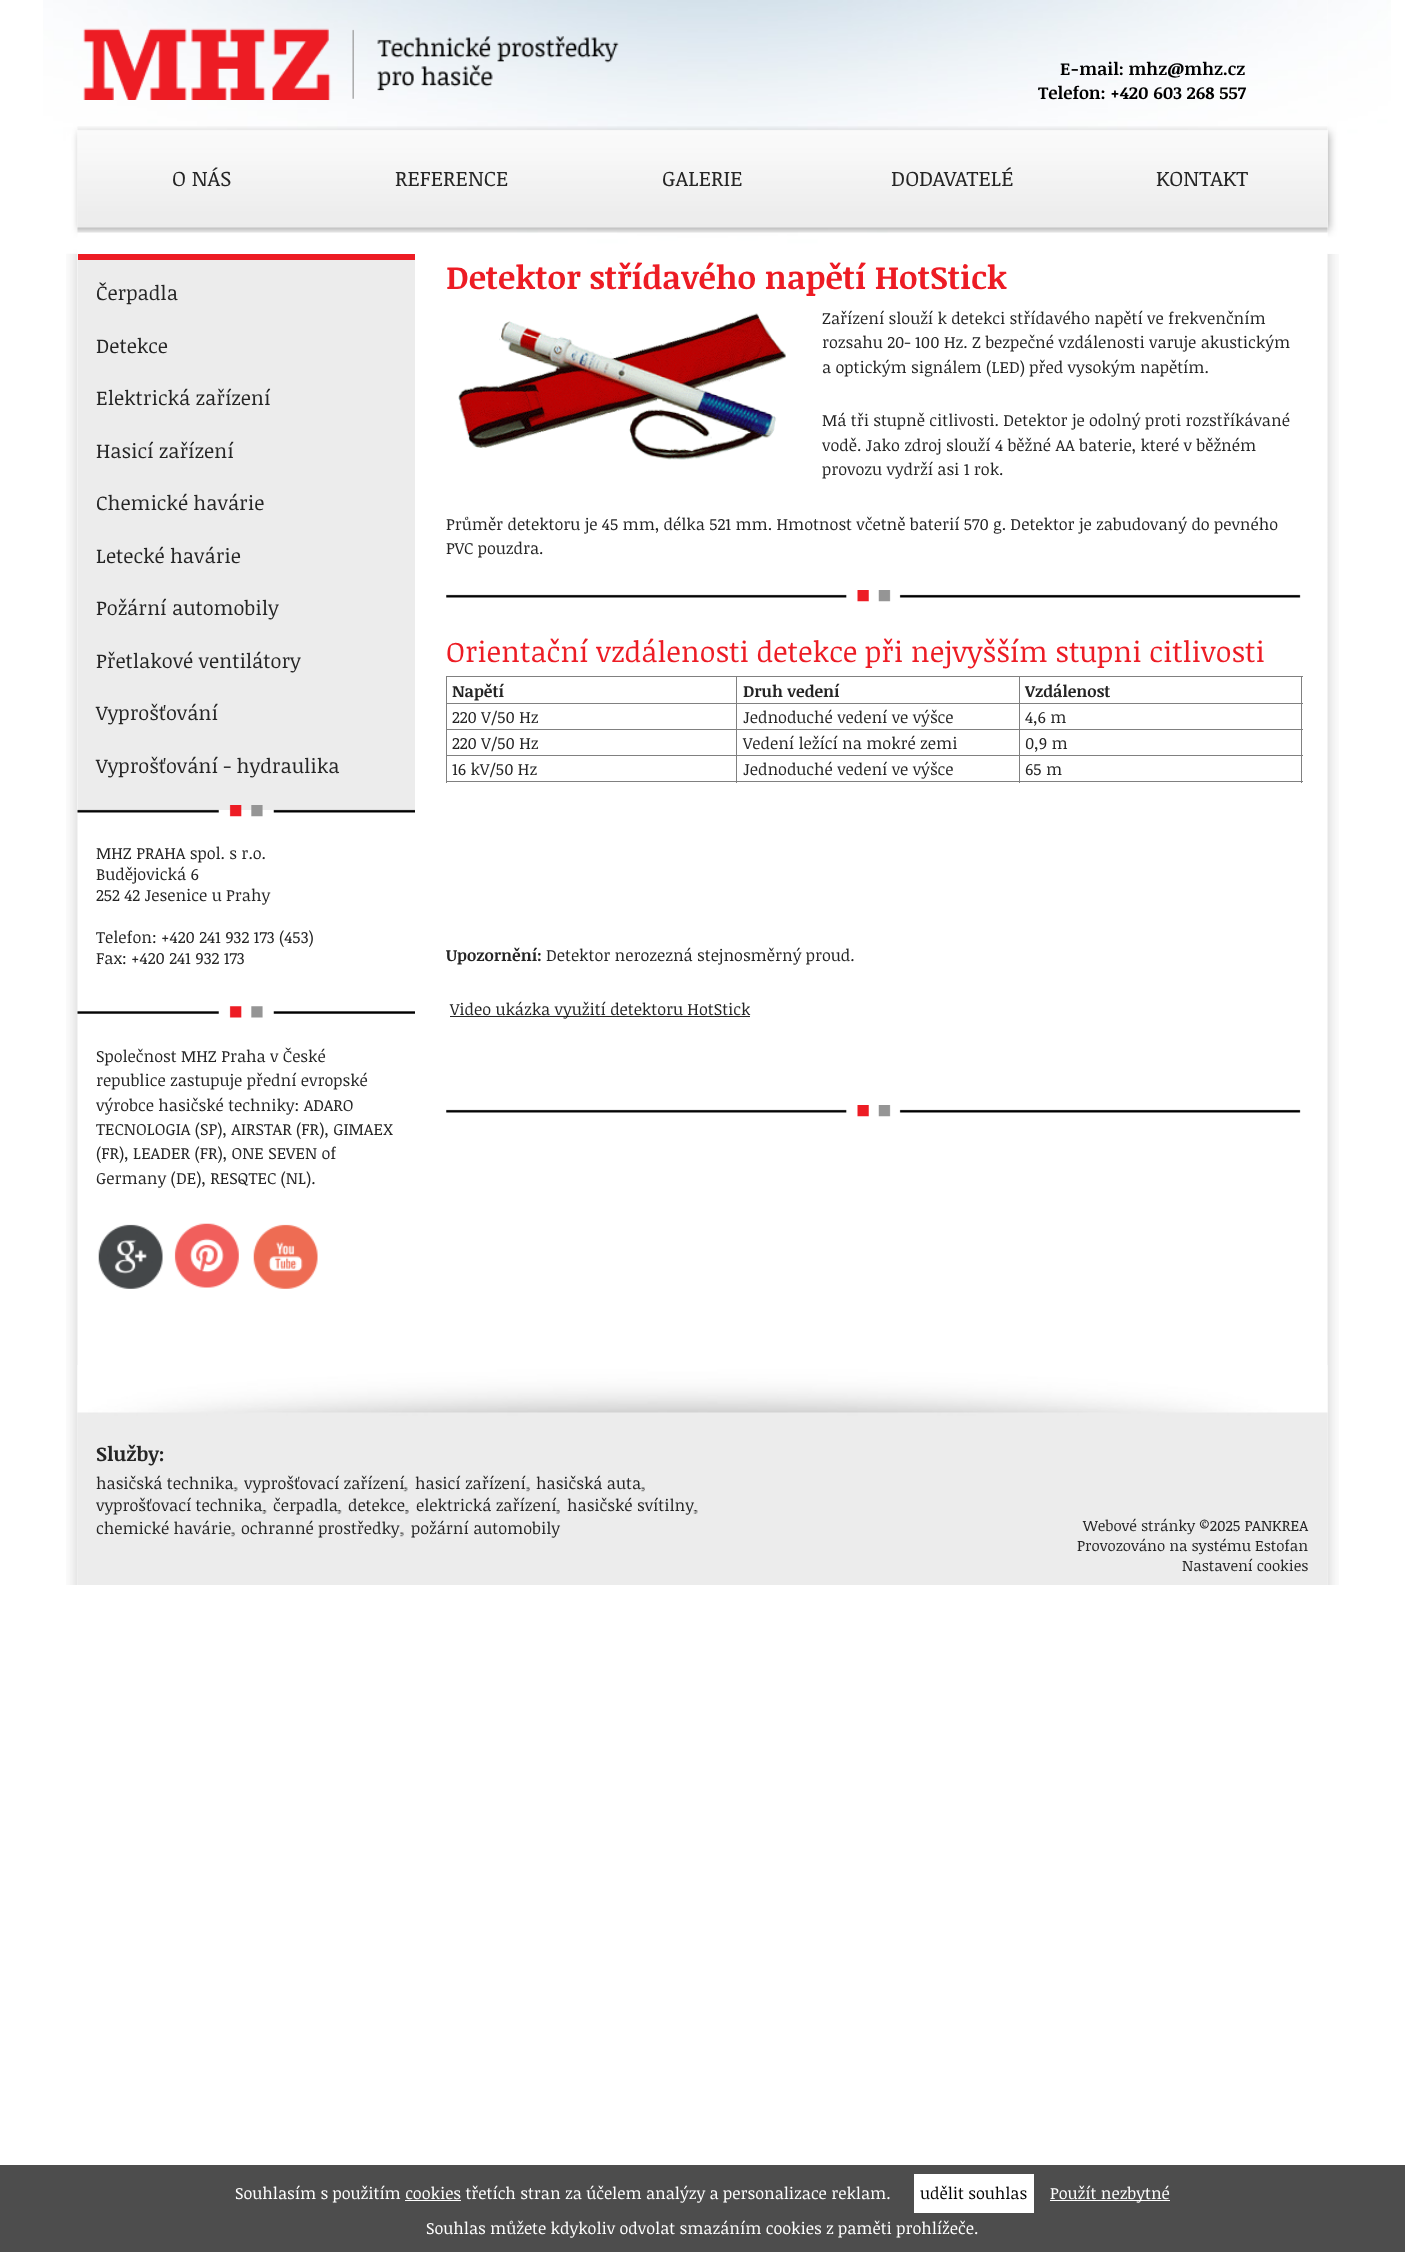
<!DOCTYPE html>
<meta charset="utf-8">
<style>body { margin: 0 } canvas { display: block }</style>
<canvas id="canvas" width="1405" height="2252"></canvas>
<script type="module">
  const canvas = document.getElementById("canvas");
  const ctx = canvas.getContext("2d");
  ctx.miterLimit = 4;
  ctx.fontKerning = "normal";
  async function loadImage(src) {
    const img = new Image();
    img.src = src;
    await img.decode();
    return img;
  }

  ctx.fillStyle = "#ffffff";
  ctx.fillRect(0, 0, 1405, 2252);
  ctx.drawImage(await loadImage("img1.png"), 43, 0, 35, 253);
  ctx.drawImage(await loadImage("img6.png"), 66, 253, 1273, 1332);
  ctx.drawImage(await loadImage("img5.png"), 1327, 0, 64, 254);
  ctx.drawImage(await loadImage("img2.png"), 77, 0, 1251, 253);
  ctx.drawImage(await loadImage("img3.png"), 83, 28, 536, 72);
  ctx.font = "bold 17.5px Noticia Text";
  ctx.fillStyle = "#010101";
  ctx.fillText("E-mail: mhz@mhz.cz", 1060, 75);
  ctx.fillText("Telefon: +420 603 268 557", 1038, 99);
  ctx.drawImage(await loadImage("img4.png"), 77, 126, 1251, 107);
  ctx.font = "21.25px Noticia Text";
  ctx.fillStyle = "#252525";
  ctx.fillText("O NÁS", 172, 186);
  ctx.fillText("REFERENCE", 395, 186);
  ctx.fillText("GALERIE", 662, 186);
  ctx.fillText("DODAVATELÉ", 891, 186);
  ctx.fillText("KONTAKT", 1156, 186);
  ctx.fillStyle = "#ececec";
  ctx.fillRect(78, 260, 337, 550);
  ctx.fillStyle = "#ed1c24";
  ctx.fillRect(78, 254, 337, 6);
  ctx.font = "20px Noticia Text";
  ctx.fillStyle = "#252525";
  ctx.fillText("Čerpadla", 96, 300);
  ctx.fillText("Detekce", 96, 353);
  ctx.fillText("Elektrická zařízení", 96, 405);
  ctx.fillText("Hasicí zařízení", 96, 458);
  ctx.fillText("Chemické havárie", 96, 510);
  ctx.fillText("Letecké havárie", 96, 563);
  ctx.fillText("Požární automobily", 96, 615);
  ctx.fillText("Přetlakové ventilátory", 96, 668);
  ctx.fillText("Vyprošťování", 96, 720);
  ctx.fillText("Vyprošťování - hydraulika", 96, 773);
  ctx.drawImage(await loadImage("img7.png"), 77, 805, 338, 12);
  ctx.font = "16.25px Noticia Text";
  ctx.fillText("MHZ PRAHA spol. s r.o.", 96, 859);
  ctx.fillText("Budějovická 6", 96, 880);
  ctx.fillText("252 42 Jesenice u Prahy", 96, 901);
  ctx.fillText("Telefon: +420 241 932 173 (453)", 96, 943);
  ctx.fillText("Fax: +420 241 932 173", 96, 964);
  ctx.drawImage(await loadImage("img8.png"), 77, 1006, 338, 12);
  ctx.fillText("Společnost MHZ Praha v České", 96, 1062);
  ctx.fillText("republice zastupuje přední evropské", 96, 1086);
  ctx.fillText("výrobce hasičské techniky: ADARO", 96, 1111);
  ctx.fillText("TECNOLOGIA (SP), AIRSTAR (FR), GIMAEX", 96, 1135);
  ctx.fillText("(FR), LEADER (FR), ONE SEVEN of", 96, 1159);
  ctx.fillText("Germany (DE), RESQTEC (NL).", 96, 1184);
  ctx.drawImage(await loadImage("img9.png"), 98, 1224, 65, 65);
  ctx.drawImage(await loadImage("img10.png"), 174, 1223, 65, 65);
  ctx.drawImage(await loadImage("img11.png"), 253, 1224, 65, 65);
  ctx.font = "bold 32.5px Noticia Text";
  ctx.fillStyle = "#ed1c24";
  ctx.fillText("Detektor střídavého napětí HotStick", 446, 289);
  ctx.drawImage(await loadImage("img12.png"), 458, 313, 328, 147);
  ctx.font = "16.25px Noticia Text";
  ctx.fillStyle = "#252525";
  ctx.fillText("Zařízení slouží k detekci střídavého napětí ve frekvenčním", 822, 324);
  ctx.fillText("rozsahu 20- 100 Hz. Z bezpečné vzdálenosti varuje akustickým", 822, 348);
  ctx.fillText("a optickým signálem (LED) před vysokým napětím.", 822, 373);
  ctx.fillText("Má tři stupně citlivosti. Detektor je odolný proti rozstříkávané", 822, 426);
  ctx.fillText("vodě. Jako zdroj slouží 4 běžné AA baterie, které v běžném", 822, 451);
  ctx.fillText("provozu vydrží asi 1 rok.", 822, 475);
  ctx.fillText("Průměr detektoru je 45 mm, délka 521 mm. Hmotnost včetně baterií 570 g. Detektor je zabudovaný do pevného", 446, 530);
  ctx.fillText("PVC pouzdra.", 446, 554);
  ctx.drawImage(await loadImage("img13.png"), 446, 590, 855, 12);
  ctx.font = "28.75px Noticia Text";
  ctx.fillStyle = "#ed1c24";
  ctx.fillText("Orientační vzdálenosti detekce při nejvyšším stupni citlivosti", 446, 662);
  ctx.fillStyle = "#808080";
  ctx.fillRect(446, 676, 857, 1);
  ctx.fillRect(1301, 676, 1, 107);
  ctx.fillRect(446, 781, 857, 1);
  ctx.fillRect(446, 676, 1, 107);
  ctx.font = "bold 16.25px Noticia Text";
  ctx.fillStyle = "#252525";
  ctx.fillText("Napětí", 452, 697);
  ctx.fillStyle = "#808080";
  ctx.fillRect(1019, 703, 284, 1);
  ctx.fillRect(1019, 729, 284, 1);
  ctx.fillRect(1019, 755, 284, 1);
  ctx.fillRect(1019, 755, 1, 28);
  ctx.fillRect(736, 755, 284, 1);
  ctx.fillRect(1019, 729, 1, 27);
  ctx.fillRect(736, 729, 284, 1);
  ctx.fillRect(1019, 703, 1, 27);
  ctx.fillRect(736, 703, 284, 1);
  ctx.fillRect(736, 755, 1, 28);
  ctx.fillRect(446, 755, 292, 1);
  ctx.fillRect(736, 729, 1, 27);
  ctx.fillRect(446, 729, 292, 1);
  ctx.fillRect(736, 703, 1, 27);
  ctx.fillRect(446, 703, 292, 1);
  ctx.fillRect(736, 676, 1, 28);
  ctx.fillStyle = "#252525";
  ctx.fillText("Druh vedení", 743, 697);
  ctx.fillStyle = "#808080";
  ctx.fillRect(1019, 676, 1, 28);
  ctx.fillStyle = "#252525";
  ctx.fillText("Vzdálenost", 1025, 697);
  ctx.font = "16.25px Noticia Text";
  ctx.fillText("220 V/50 Hz", 452, 723);
  ctx.fillText("Jednoduché vedení ve výšce", 743, 723);
  ctx.fillText("4,6 m", 1025, 723);
  ctx.fillText("220 V/50 Hz", 452, 749);
  ctx.fillText("Vedení ležící na mokré zemi", 743, 749);
  ctx.fillText("0,9 m", 1025, 749);
  ctx.fillText("16 kV/50 Hz", 452, 775);
  ctx.fillText("Jednoduché vedení ve výšce", 743, 775);
  ctx.fillText("65 m", 1025, 775);
  ctx.font = "bold 16.25px Noticia Text";
  ctx.fillText("Upozornění:", 446, 961);
  ctx.font = "16.25px Noticia Text";
  ctx.fillText("Detektor nerozezná stejnosměrný proud.", 546, 961);
  ctx.fillRect(450, 1016, 300, 1);
  ctx.fillText("Video ukázka využití detektoru HotStick", 450, 1015);
  ctx.drawImage(await loadImage("img13.png"), 446, 1105, 855, 12);
  ctx.drawImage(await loadImage("img14.png"), 77, 1365, 1251, 220);
  ctx.font = "bold 20px Noticia Text";
  ctx.fillText("Služby:", 96, 1461);
  ctx.drawImage(await loadImage("img15.png"), 233, 1487, 5, 5);
  ctx.font = "16.25px Noticia Text";
  ctx.fillText("hasičská technika", 96, 1489);
  ctx.drawImage(await loadImage("img15.png"), 403, 1487, 5, 5);
  ctx.fillText("vyprošťovací zařízení", 244, 1489);
  ctx.drawImage(await loadImage("img16.png"), 526, 1487, 4, 5);
  ctx.fillText("hasicí zařízení", 415, 1489);
  ctx.drawImage(await loadImage("img16.png"), 641, 1487, 4, 5);
  ctx.fillText("hasičská auta", 536, 1489);
  ctx.drawImage(await loadImage("img17.png"), 262, 1510, 5, 4);
  ctx.fillText("vyprošťovací technika", 96, 1511);
  ctx.drawImage(await loadImage("img17.png"), 337, 1510, 5, 4);
  ctx.fillText("čerpadla", 273, 1511);
  ctx.drawImage(await loadImage("img18.png"), 405, 1510, 4, 4);
  ctx.fillText("detekce", 348, 1511);
  ctx.drawImage(await loadImage("img19.png"), 556, 1510, 4, 4);
  ctx.fillText("elektrická zařízení", 416, 1511);
  ctx.drawImage(await loadImage("img20.png"), 693, 1510, 5, 4);
  ctx.fillText("hasičské svítilny", 567, 1511);
  ctx.drawImage(await loadImage("img16.png"), 231, 1532, 4, 5);
  ctx.fillText("chemické havárie", 96, 1534);
  ctx.drawImage(await loadImage("img21.png"), 400, 1532, 4, 5);
  ctx.fillText("ochranné prostředky", 241, 1534);
  ctx.fillText("požární automobily", 411, 1534);
  ctx.font = "15px Noticia Text";
  ctx.fillText("Webové stránky ©2025 PANKREA", 1083, 1531);
  ctx.fillText("Provozováno na systému Estofan", 1077, 1551);
  ctx.fillText("Nastavení cookies", 1182, 1571);
  ctx.fillStyle = "#4d4d4d";
  ctx.fillRect(0, 2165, 1405, 87);
  ctx.font = "16.25px Noticia Text";
  ctx.fillStyle = "#ffffff";
  ctx.fillText("Souhlasím s použitím cookies třetích stran za účelem analýzy a personalizace reklam.", 235, 2199);
  ctx.fillRect(914, 2174, 120, 39);
  ctx.fillStyle = "#010101";
  ctx.fillText("udělit souhlas", 920, 2199);
  ctx.fillStyle = "#ffffff";
  ctx.fillRect(1050, 2200, 120, 1);
  ctx.fillText("Použít nezbytné", 1050, 2199);
  ctx.fillRect(405, 2200, 56, 1);
  ctx.fillText("Souhlas můžete kdykoliv odvolat smazáním cookies z paměti prohlížeče.", 426, 2234);
</script>
